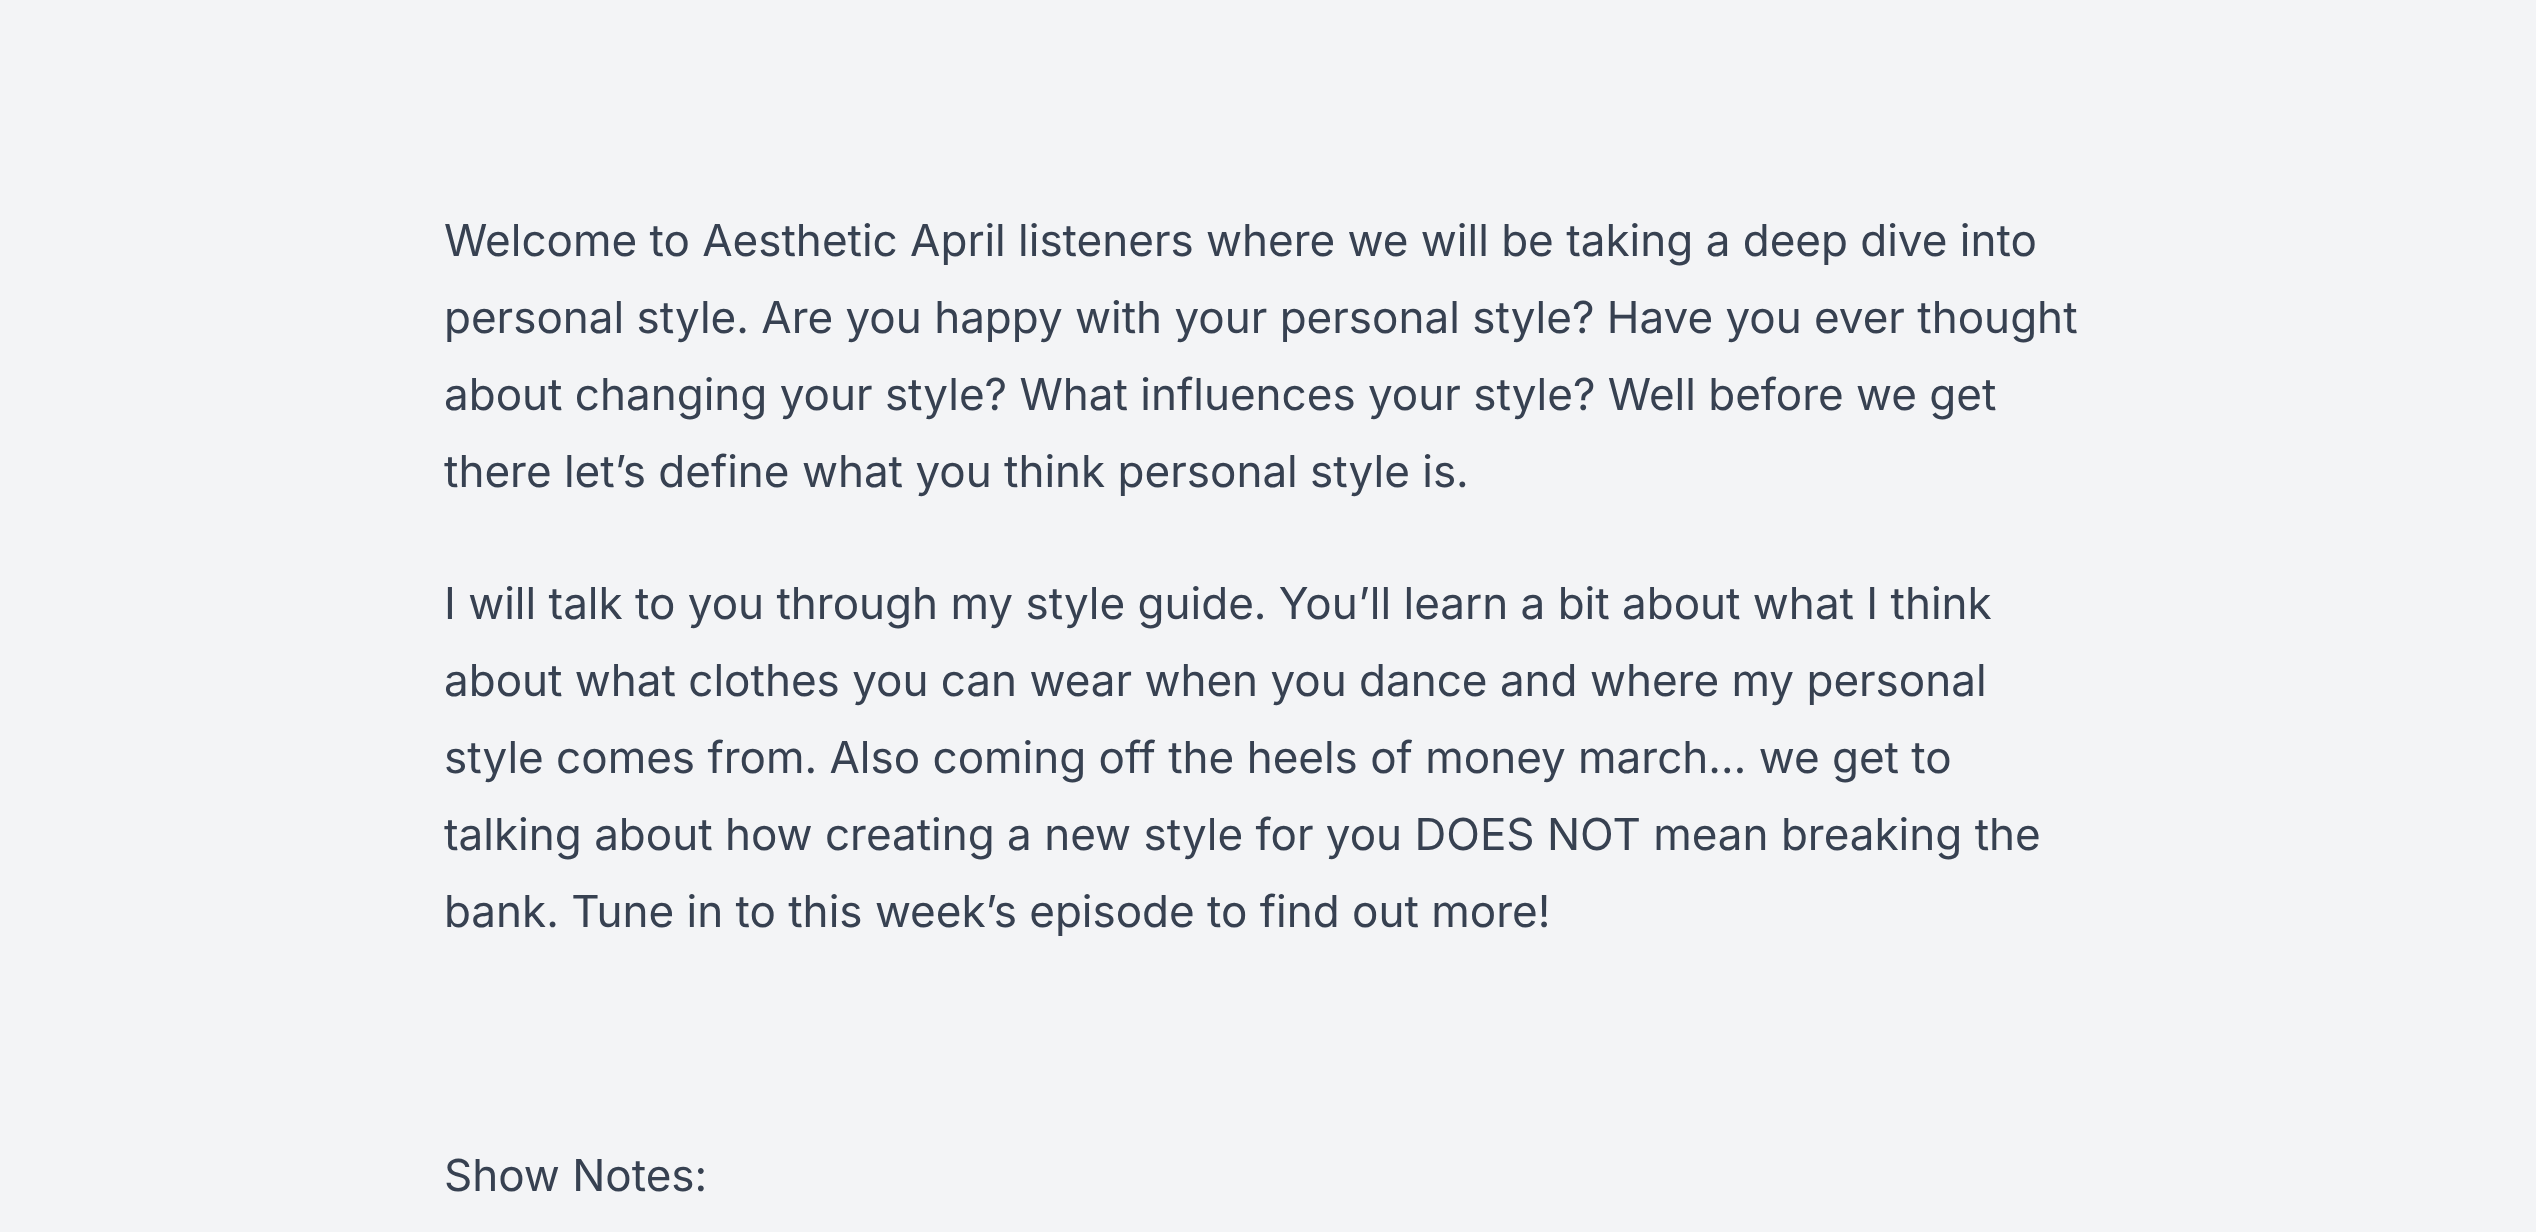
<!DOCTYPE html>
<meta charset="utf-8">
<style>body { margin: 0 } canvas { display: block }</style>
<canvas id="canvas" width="2536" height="1232"></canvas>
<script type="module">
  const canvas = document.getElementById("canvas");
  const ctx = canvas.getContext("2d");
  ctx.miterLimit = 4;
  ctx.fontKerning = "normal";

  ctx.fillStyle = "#f3f4f6";
  ctx.fillRect(0, 0, 2536, 1232);
  ctx.font = "44px Inter";
  ctx.fillStyle = "#374151";
  ctx.fillText("Welcome to Aesthetic April listeners where we will be taking a deep dive into", 444, 256);
  ctx.fillText("personal style. Are you happy with your personal style? Have you ever thought", 444, 333);
  ctx.fillText("about changing your style? What influences your style? Well before we get", 444, 410);
  ctx.fillText("there let’s define what you think personal style is.", 444, 487);
  ctx.fillText("I will talk to you through my style guide. You’ll learn a bit about what I think", 444, 619);
  ctx.fillText("about what clothes you can wear when you dance and where my personal", 444, 696);
  ctx.fillText("style comes from. Also coming off the heels of money march… we get to", 444, 773);
  ctx.fillText("talking about how creating a new style for you DOES NOT mean breaking the", 444, 850);
  ctx.fillText("bank. Tune in to this week’s episode to find out more!", 444, 927);
  ctx.fillText("Show Notes:", 444, 1191);
</script>
